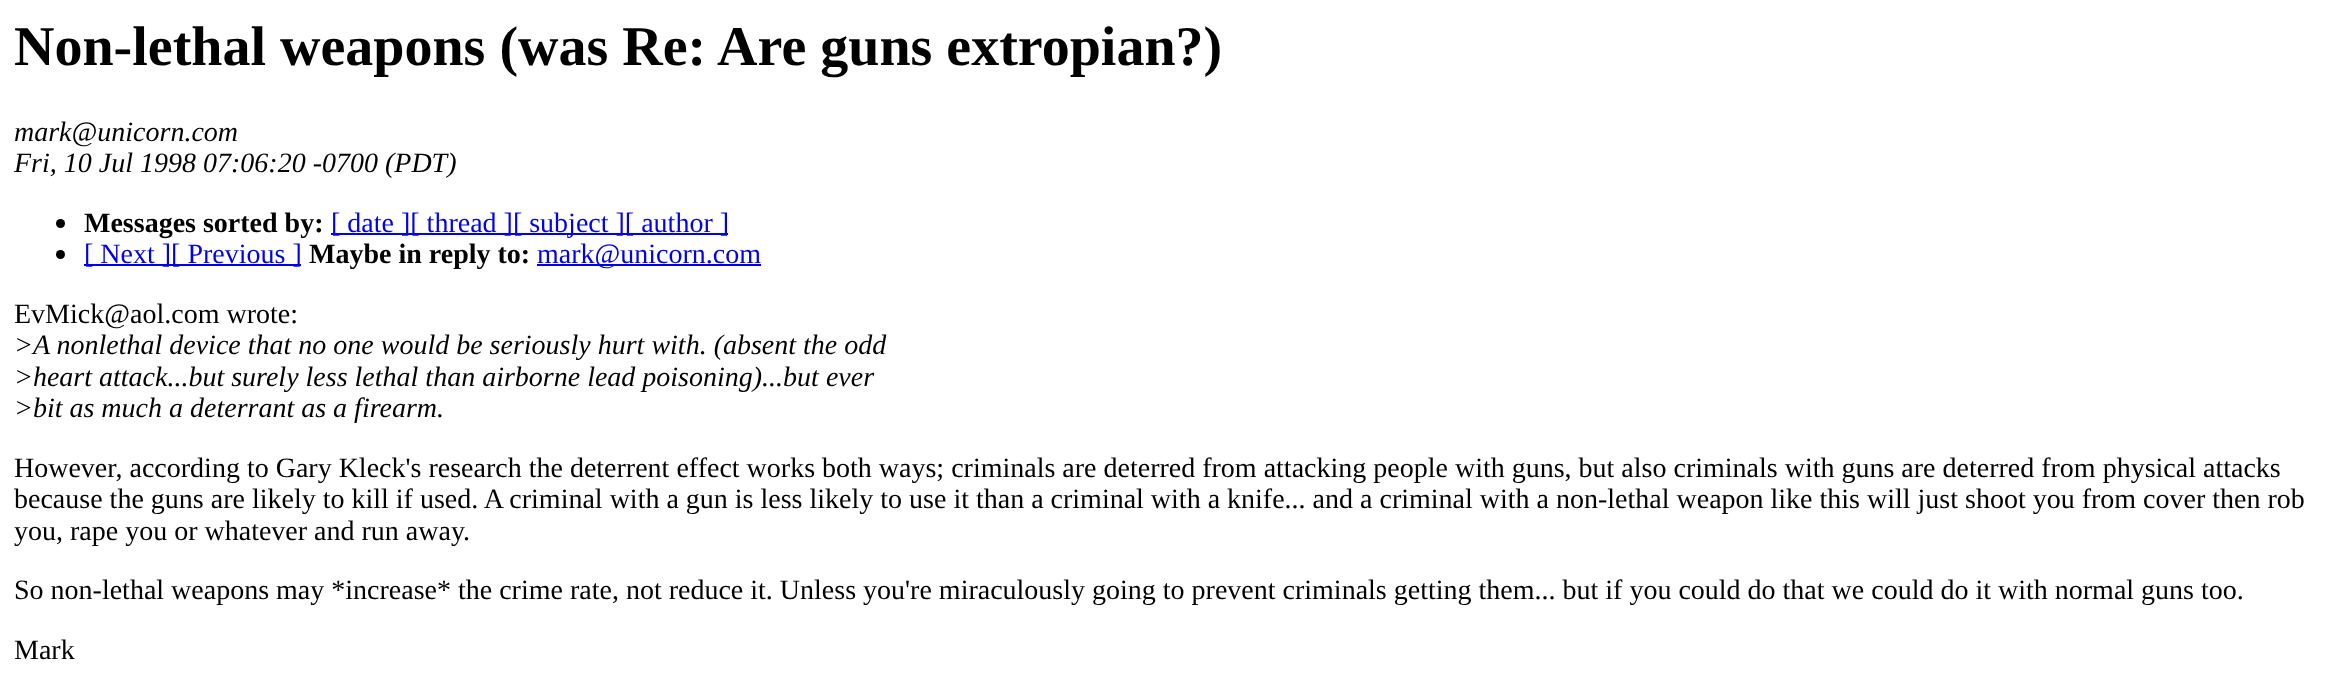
<!DOCTYPE html>
<meta charset="utf-8">
<style>body { margin: 0 } canvas { display: block }</style>
<canvas id="canvas" width="2327" height="691"></canvas>
<script type="module">
  const canvas = document.getElementById("canvas");
  const ctx = canvas.getContext("2d");
  ctx.miterLimit = 4;
  ctx.fontKerning = "normal";

  ctx.fillStyle = "#ffffff";
  ctx.fillRect(0, 0, 2327, 691);
  ctx.font = "bold 56px Liberation Serif";
  ctx.fillStyle = "#000000";
  ctx.fillText("Non-lethal weapons (was Re: Are guns extropian?)", 14, 65);
  ctx.font = "italic 28px Liberation Serif";
  ctx.fillText("mark@unicorn.com", 14, 141);
  ctx.fillText("Fri, 10 Jul 1998 07:06:20 -0700 (PDT)", 14, 172);
  ctx.beginPath();
  ctx.arc(60.5, 223.5, 4.5, 0, Math.PI * 2);
  ctx.fill();
  ctx.font = "bold 28px Liberation Serif";
  ctx.fillText("Messages sorted by:", 84, 232);
  ctx.fillStyle = "#0000ee";
  ctx.fillRect(331, 233, 397, 2);
  ctx.font = "28px Liberation Serif";
  ctx.fillText("[ date ][ thread ][ subject ][ author ]", 331, 232);
  ctx.fillStyle = "#000000";
  ctx.beginPath();
  ctx.arc(60.5, 254.5, 4.5, 0, Math.PI * 2);
  ctx.fill();
  ctx.fillStyle = "#0000ee";
  ctx.fillRect(84, 264, 217, 2);
  ctx.fillText("[ Next ][ Previous ]", 84, 263);
  ctx.font = "bold 28px Liberation Serif";
  ctx.fillStyle = "#000000";
  ctx.fillText("Maybe in reply to:", 309, 263);
  ctx.fillStyle = "#0000ee";
  ctx.fillRect(537, 264, 224, 2);
  ctx.font = "28px Liberation Serif";
  ctx.fillText("mark@unicorn.com", 537, 263);
  ctx.fillStyle = "#000000";
  ctx.fillText("EvMick@aol.com wrote:", 14, 323);
  ctx.font = "italic 28px Liberation Serif";
  ctx.fillText(">A nonlethal device that no one would be seriously hurt with. (absent the odd", 14, 354);
  ctx.fillText(">heart attack...but surely less lethal than airborne lead poisoning)...but ever", 14, 386);
  ctx.fillText(">bit as much a deterrant as a firearm.", 14, 417);
  ctx.font = "28px Liberation Serif";
  ctx.fillText("However, according to Gary Kleck's research the deterrent effect works both ways; criminals are deterred from attacking people with guns, but also criminals with guns are deterred from physical attacks", 14, 477);
  ctx.fillText("because the guns are likely to kill if used. A criminal with a gun is less likely to use it than a criminal with a knife... and a criminal with a non-lethal weapon like this will just shoot you from cover then rob", 14, 508);
  ctx.fillText("you, rape you or whatever and run away.", 14, 540);
  ctx.fillText("So non-lethal weapons may *increase* the crime rate, not reduce it. Unless you're miraculously going to prevent criminals getting them... but if you could do that we could do it with normal guns too.", 14, 599);
  ctx.fillText("Mark", 14, 659);
</script>
